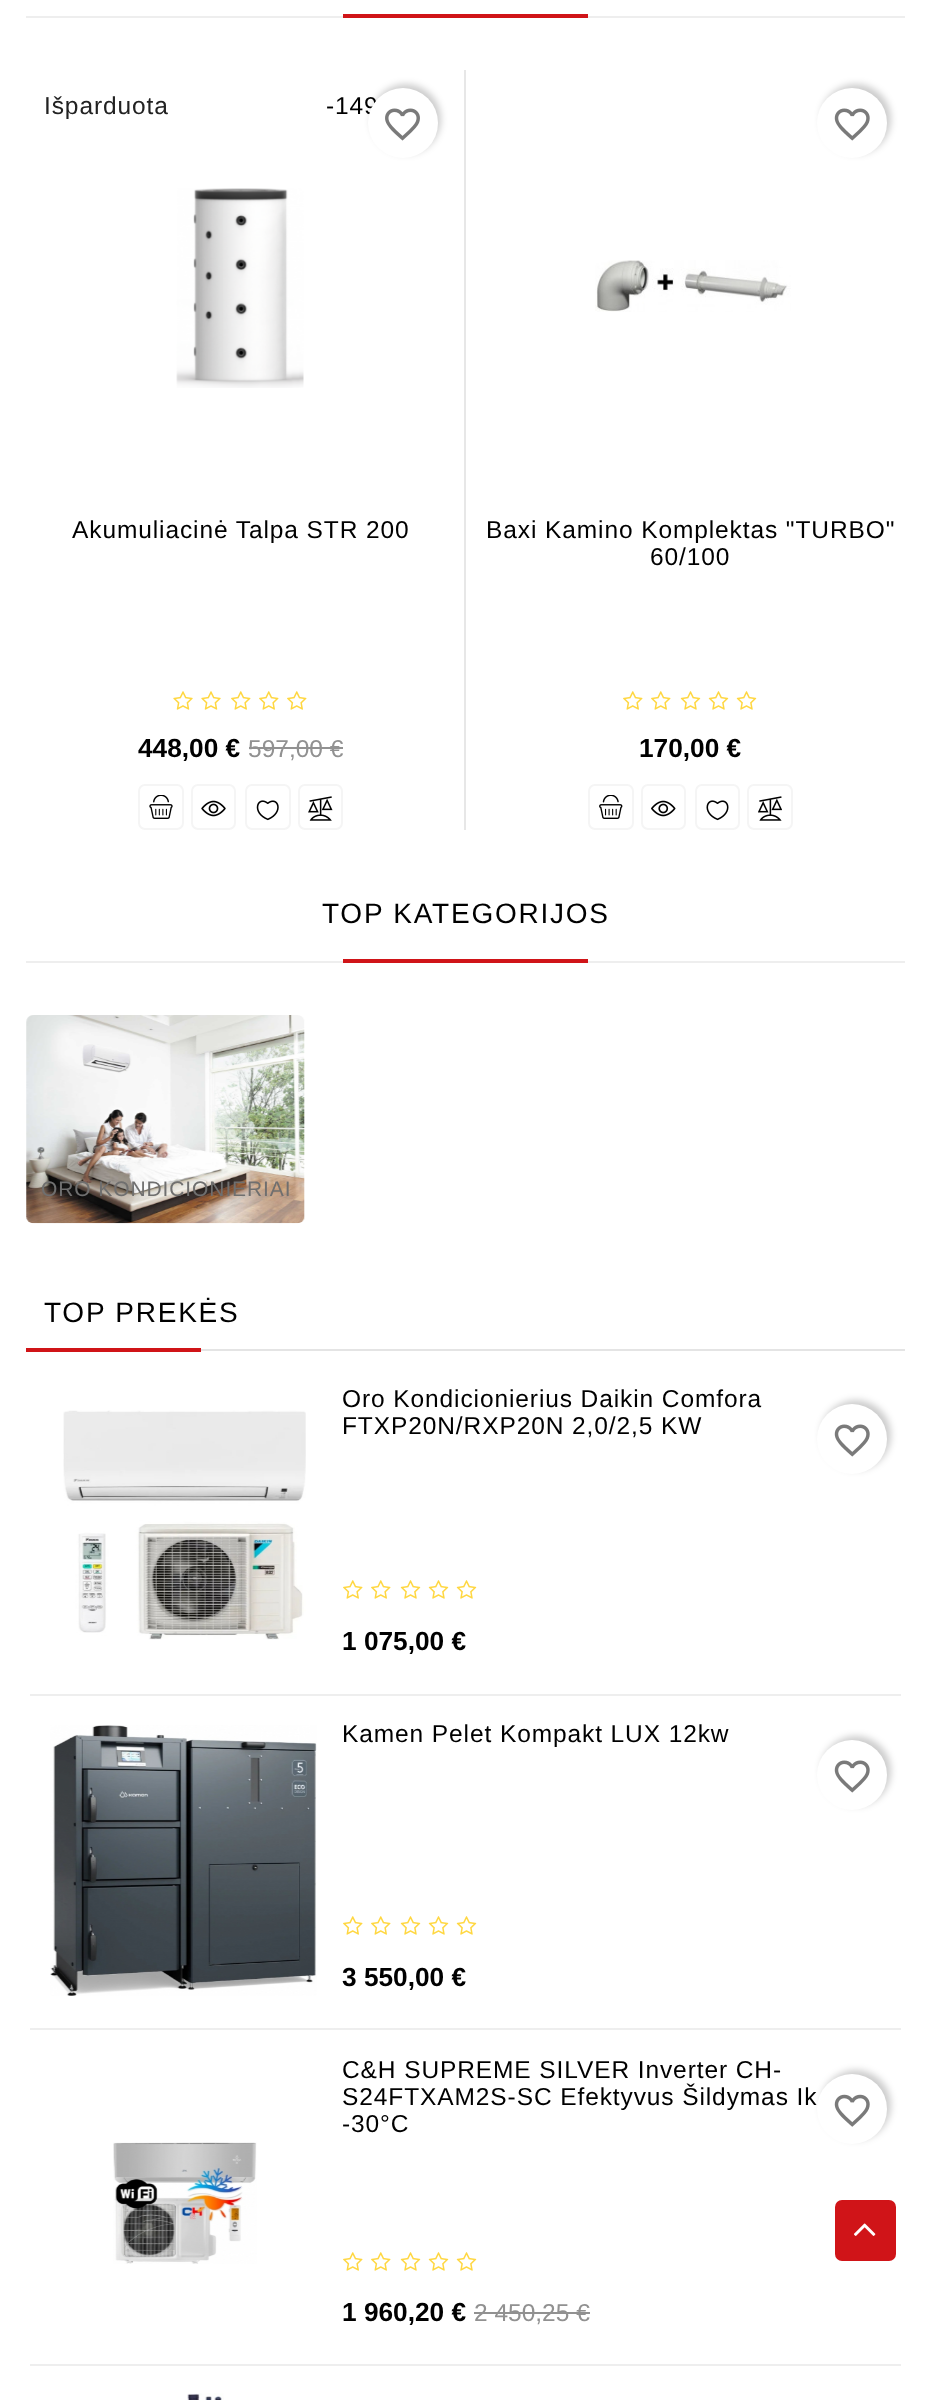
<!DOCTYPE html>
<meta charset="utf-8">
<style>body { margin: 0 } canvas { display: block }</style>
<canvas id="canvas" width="931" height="2400"></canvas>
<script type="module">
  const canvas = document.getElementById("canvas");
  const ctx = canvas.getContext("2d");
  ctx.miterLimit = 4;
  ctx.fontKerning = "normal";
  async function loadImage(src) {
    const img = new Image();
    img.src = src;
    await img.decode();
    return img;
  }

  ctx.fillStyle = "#ffffff";
  ctx.fillRect(0, 0, 931, 2400);
  ctx.fillStyle = "#eeeeee";
  ctx.fillRect(26, 16, 879, 2);
  ctx.fillStyle = "#d01418";
  ctx.fillRect(343, 14, 245, 4);
  ctx.letterSpacing = "0.9px";
  ctx.font = "24.5px Liberation Sans";
  ctx.fillStyle = "#222222";
  ctx.fillText("Išparduota", 44, 114);
  ctx.fillStyle = "#000000";
  ctx.fillText("-149", 326, 114);
  ctx.drawImage(await loadImage("img1.png"), 176, 188, 128, 200);
  ctx.fillStyle = "rgba(0, 0, 0, 0.2)";
  ctx.filter = "blur(3.5px)";
  ctx.beginPath();
  ctx.roundRect(371, 84, 70, 70, 35);
  ctx.fill();
  ctx.filter = "none";
  ctx.fillStyle = "#ffffff";
  ctx.beginPath();
  ctx.arc(403, 123, 35, 0, Math.PI * 2);
  ctx.fill();
  ctx.drawImage(await loadImage("img2.png"), 385, 108, 35, 33);
  ctx.fillStyle = "#000000";
  ctx.fillText("Akumuliacinė Talpa STR 200", 72, 538);
  ctx.drawImage(await loadImage("img3.png"), 173, 691, 20, 19);
  ctx.drawImage(await loadImage("img3.png"), 201, 691, 20, 19);
  ctx.drawImage(await loadImage("img4.png"), 231, 691, 20, 19);
  ctx.drawImage(await loadImage("img4.png"), 259, 691, 20, 19);
  ctx.drawImage(await loadImage("img4.png"), 287, 691, 20, 19);
  ctx.letterSpacing = "0px";
  ctx.font = "bold 26.25px Liberation Sans";
  ctx.fillText("448,00 €", 138, 757);
  ctx.font = "24.5px Liberation Sans";
  ctx.fillStyle = "#919191";
  ctx.fillText("597,00 €", 248, 757);
  ctx.fillRect(249, 747, 94, 2);
  ctx.beginPath();
  ctx.roundRect(139, 785, 44, 44, 6);
  ctx.strokeStyle = "#f5f5f5";
  ctx.lineWidth = 2;
  ctx.stroke();
  ctx.drawImage(await loadImage("img5.png"), 149, 795, 24, 24);
  ctx.beginPath();
  ctx.roundRect(192, 785, 43, 44, 6);
  ctx.stroke();
  ctx.drawImage(await loadImage("img6.png"), 201, 800, 25, 17);
  ctx.beginPath();
  ctx.roundRect(246, 785, 44, 44, 6);
  ctx.stroke();
  ctx.drawImage(await loadImage("img7.png"), 256, 800, 23, 21);
  ctx.beginPath();
  ctx.roundRect(299, 785, 43, 44, 6);
  ctx.stroke();
  ctx.drawImage(await loadImage("img8.png"), 308, 796, 25, 25);
  ctx.fillStyle = "#e7e7e7";
  ctx.fillRect(464, 70, 2, 760);
  ctx.fillStyle = "rgba(0, 0, 0, 0.2)";
  ctx.filter = "blur(3.5px)";
  ctx.beginPath();
  ctx.roundRect(821, 84, 70, 70, 35);
  ctx.fill();
  ctx.filter = "none";
  ctx.fillStyle = "#ffffff";
  ctx.beginPath();
  ctx.arc(852, 123, 35, 0, Math.PI * 2);
  ctx.fill();
  ctx.drawImage(await loadImage("img9.png"), 834, 108, 36, 33);
  ctx.drawImage(await loadImage("img10.png"), 595, 260, 196, 52);
  ctx.letterSpacing = "0.9px";
  ctx.fillStyle = "#000000";
  ctx.fillText("Baxi Kamino Komplektas \"TURBO\"", 486, 538);
  ctx.fillText("60/100", 650, 565);
  ctx.drawImage(await loadImage("img4.png"), 623, 691, 20, 19);
  ctx.drawImage(await loadImage("img4.png"), 651, 691, 20, 19);
  ctx.drawImage(await loadImage("img11.png"), 680, 691, 21, 19);
  ctx.drawImage(await loadImage("img11.png"), 708, 691, 21, 19);
  ctx.drawImage(await loadImage("img11.png"), 736, 691, 21, 19);
  ctx.letterSpacing = "0px";
  ctx.font = "bold 26.25px Liberation Sans";
  ctx.fillText("170,00 €", 639, 757);
  ctx.beginPath();
  ctx.roundRect(589, 785, 44, 44, 6);
  ctx.stroke();
  ctx.drawImage(await loadImage("img12.png"), 599, 795, 24, 24);
  ctx.beginPath();
  ctx.roundRect(642, 785, 43, 44, 6);
  ctx.stroke();
  ctx.drawImage(await loadImage("img13.png"), 651, 800, 25, 17);
  ctx.beginPath();
  ctx.roundRect(696, 785, 43, 44, 6);
  ctx.stroke();
  ctx.drawImage(await loadImage("img14.png"), 706, 800, 23, 21);
  ctx.beginPath();
  ctx.roundRect(748, 785, 44, 44, 6);
  ctx.stroke();
  ctx.drawImage(await loadImage("img15.png"), 758, 796, 24, 25);
  ctx.letterSpacing = "1.75px";
  ctx.font = "28px Liberation Sans";
  ctx.fillText("TOP KATEGORIJOS", 322, 923);
  ctx.fillStyle = "#eeeeee";
  ctx.fillRect(26, 961, 879, 2);
  ctx.fillStyle = "#d01418";
  ctx.fillRect(343, 959, 245, 4);
  ctx.drawImage(await loadImage("img16.png"), 26, 1015, 279, 209);
  ctx.letterSpacing = "0.9px";
  ctx.font = "21px Liberation Sans";
  ctx.fillStyle = "#6f6f6f";
  ctx.fillText("ORO KONDICIONIERIAI", 41, 1196);
  ctx.fillStyle = "#e4e4e4";
  ctx.fillRect(201, 1349, 704, 2);
  ctx.letterSpacing = "1.75px";
  ctx.font = "28px Liberation Sans";
  ctx.fillStyle = "#000000";
  ctx.fillText("TOP PREKĖS", 44, 1322);
  ctx.fillStyle = "#d01418";
  ctx.fillRect(26, 1348, 175, 4);
  ctx.fillStyle = "#eeeeee";
  ctx.fillRect(30, 1694, 871, 2);
  ctx.drawImage(await loadImage("img17.png"), 63, 1410, 243, 230);
  ctx.letterSpacing = "0.9px";
  ctx.font = "24.5px Liberation Sans";
  ctx.fillStyle = "#000000";
  ctx.fillText("Oro Kondicionierius Daikin Comfora", 342, 1407);
  ctx.fillText("FTXP20N/RXP20N 2,0/2,5 KW", 342, 1434);
  ctx.drawImage(await loadImage("img4.png"), 343, 1580, 20, 19);
  ctx.drawImage(await loadImage("img4.png"), 371, 1580, 20, 19);
  ctx.drawImage(await loadImage("img11.png"), 400, 1580, 21, 19);
  ctx.drawImage(await loadImage("img11.png"), 428, 1580, 21, 19);
  ctx.drawImage(await loadImage("img11.png"), 456, 1580, 21, 19);
  ctx.letterSpacing = "0px";
  ctx.font = "bold 26.25px Liberation Sans";
  ctx.fillText("1 075,00 €", 342, 1650);
  ctx.fillStyle = "rgba(0, 0, 0, 0.2)";
  ctx.filter = "blur(3.5px)";
  ctx.beginPath();
  ctx.roundRect(821, 1400, 70, 70, 35);
  ctx.fill();
  ctx.filter = "none";
  ctx.fillStyle = "#ffffff";
  ctx.beginPath();
  ctx.arc(852, 1439, 35, 0, Math.PI * 2);
  ctx.fill();
  ctx.drawImage(await loadImage("img9.png"), 834, 1424, 36, 33);
  ctx.fillStyle = "#eeeeee";
  ctx.fillRect(30, 2028, 871, 2);
  ctx.drawImage(await loadImage("img18.png"), 50, 1725, 267, 271);
  ctx.letterSpacing = "0.9px";
  ctx.font = "24.5px Liberation Sans";
  ctx.fillStyle = "#000000";
  ctx.fillText("Kamen Pelet Kompakt LUX 12kw", 342, 1742);
  ctx.drawImage(await loadImage("img4.png"), 343, 1916, 20, 19);
  ctx.drawImage(await loadImage("img4.png"), 371, 1916, 20, 19);
  ctx.drawImage(await loadImage("img11.png"), 400, 1916, 21, 19);
  ctx.drawImage(await loadImage("img11.png"), 428, 1916, 21, 19);
  ctx.drawImage(await loadImage("img11.png"), 456, 1916, 21, 19);
  ctx.letterSpacing = "0px";
  ctx.font = "bold 26.25px Liberation Sans";
  ctx.fillText("3 550,00 €", 342, 1986);
  ctx.fillStyle = "rgba(0, 0, 0, 0.2)";
  ctx.filter = "blur(3.5px)";
  ctx.beginPath();
  ctx.roundRect(821, 1736, 70, 70, 35);
  ctx.fill();
  ctx.filter = "none";
  ctx.fillStyle = "#ffffff";
  ctx.beginPath();
  ctx.arc(852, 1775, 35, 0, Math.PI * 2);
  ctx.fill();
  ctx.drawImage(await loadImage("img9.png"), 834, 1760, 36, 33);
  ctx.fillStyle = "#eeeeee";
  ctx.fillRect(30, 2364, 871, 2);
  ctx.drawImage(await loadImage("img19.png"), 113, 2142, 144, 122);
  ctx.letterSpacing = "0.9px";
  ctx.font = "24.5px Liberation Sans";
  ctx.fillStyle = "#000000";
  ctx.fillText("C&H SUPREME SILVER Inverter CH-", 342, 2078);
  ctx.fillText("S24FTXAM2S-SC Efektyvus Šildymas Ik", 342, 2105);
  ctx.fillText("-30°C", 342, 2132);
  ctx.drawImage(await loadImage("img4.png"), 343, 2252, 20, 19);
  ctx.drawImage(await loadImage("img4.png"), 371, 2252, 20, 19);
  ctx.drawImage(await loadImage("img11.png"), 400, 2252, 21, 19);
  ctx.drawImage(await loadImage("img11.png"), 428, 2252, 21, 19);
  ctx.drawImage(await loadImage("img11.png"), 456, 2252, 21, 19);
  ctx.letterSpacing = "0px";
  ctx.font = "bold 26.25px Liberation Sans";
  ctx.fillText("1 960,20 €", 342, 2321);
  ctx.font = "24.5px Liberation Sans";
  ctx.fillStyle = "#919191";
  ctx.fillText("2 450,25 €", 474, 2321);
  ctx.fillRect(474, 2312, 116, 2);
  ctx.fillStyle = "rgba(0, 0, 0, 0.2)";
  ctx.filter = "blur(3.5px)";
  ctx.beginPath();
  ctx.roundRect(821, 2070, 70, 70, 35);
  ctx.fill();
  ctx.filter = "none";
  ctx.fillStyle = "#ffffff";
  ctx.beginPath();
  ctx.arc(852, 2109, 35, 0, Math.PI * 2);
  ctx.fill();
  ctx.drawImage(await loadImage("img20.png"), 834, 2094, 36, 33);
  ctx.drawImage(await loadImage("img21.png"), 187, 2393, 37, 7);
  ctx.fillStyle = "#d01418";
  ctx.beginPath();
  ctx.roundRect(835, 2200, 61, 61, 7);
  ctx.fill();
  ctx.drawImage(await loadImage("img22.png"), 854, 2223, 22, 13);
</script>
